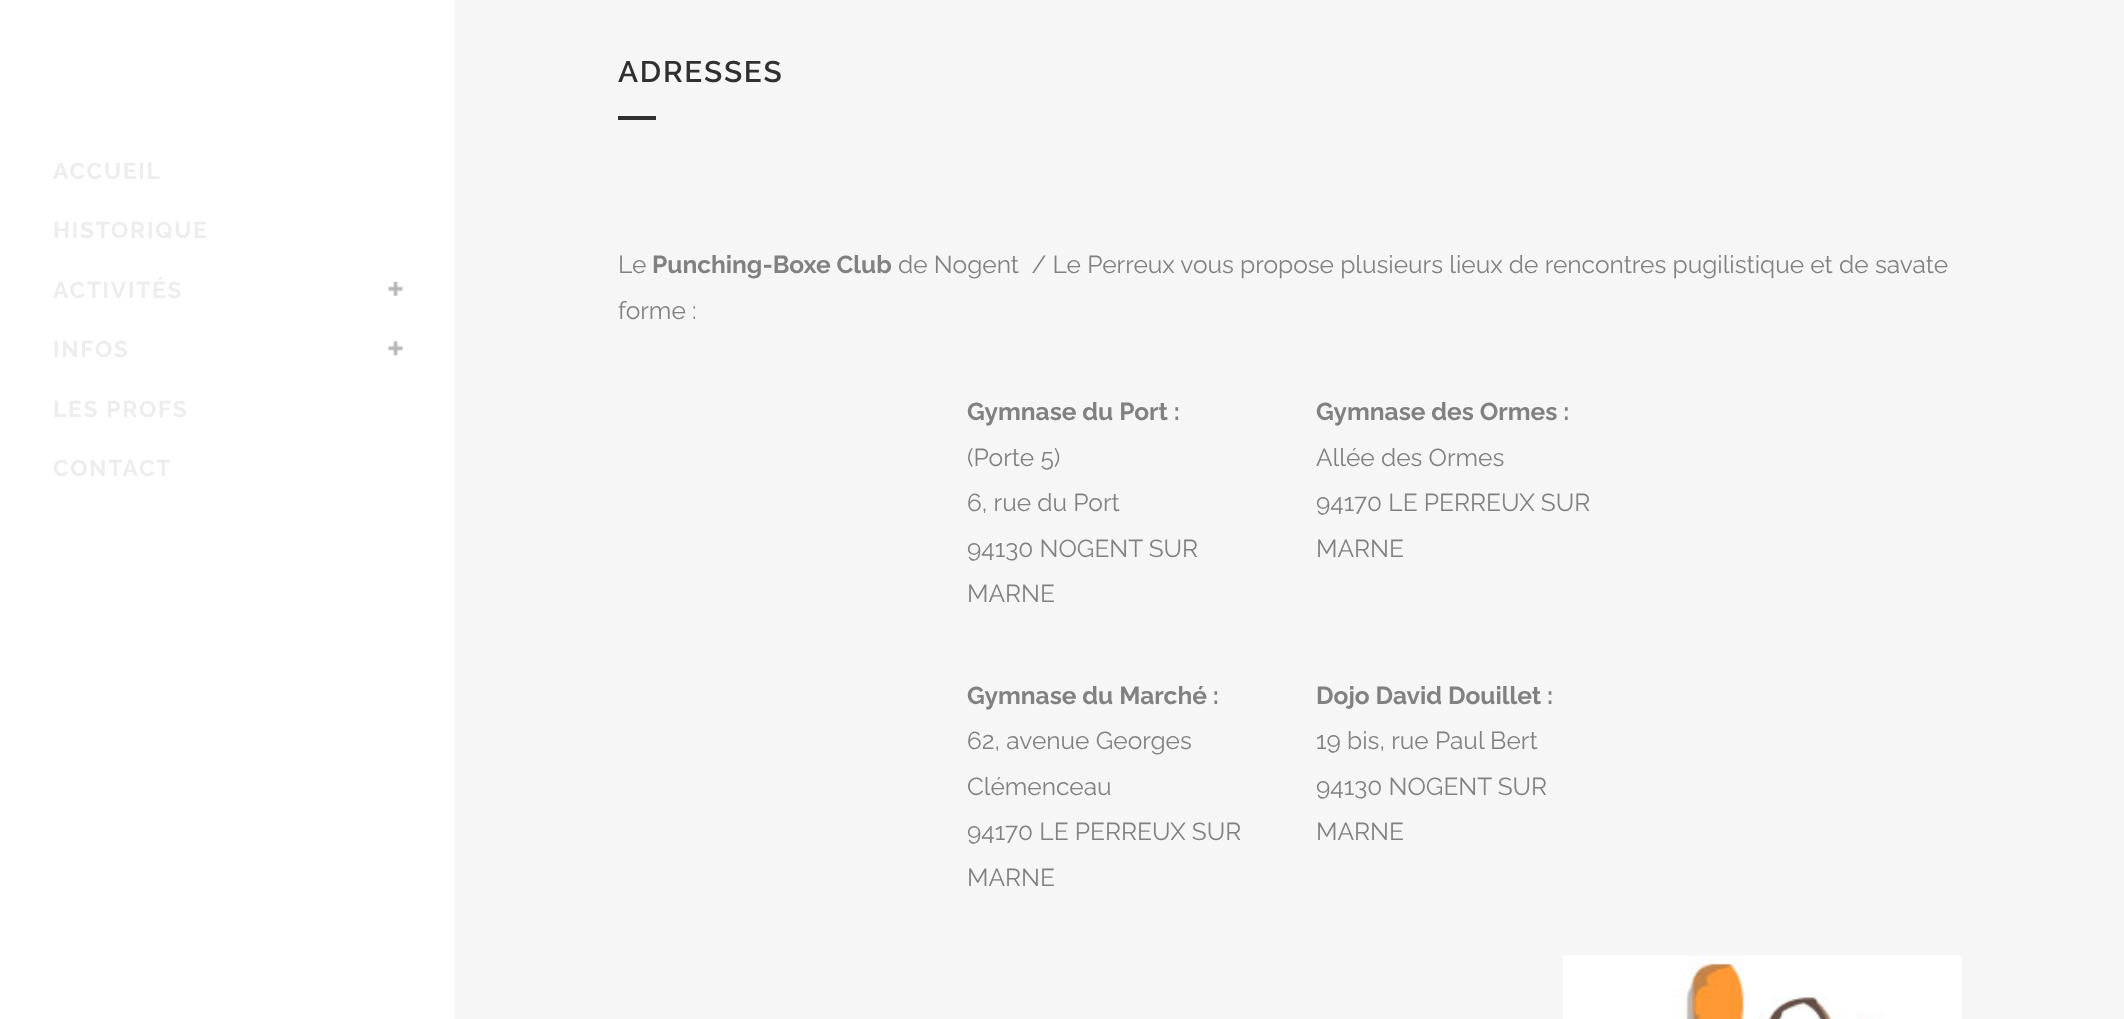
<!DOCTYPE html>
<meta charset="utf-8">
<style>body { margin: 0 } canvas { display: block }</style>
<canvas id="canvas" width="2124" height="1019"></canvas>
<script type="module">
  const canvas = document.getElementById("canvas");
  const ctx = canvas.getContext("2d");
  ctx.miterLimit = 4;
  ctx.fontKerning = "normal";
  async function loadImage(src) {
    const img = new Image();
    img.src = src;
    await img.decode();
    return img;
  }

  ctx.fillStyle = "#f6f6f6";
  ctx.fillRect(0, 0, 2124, 1019);
  ctx.fillStyle = "#ffffff";
  ctx.fillRect(0, 0, 455, 1019);
  ctx.letterSpacing = "1.75px";
  ctx.font = "bold 22.75px Raleway";
  ctx.fillStyle = "#ededed";
  ctx.fillText("ACCUEIL", 53, 179);
  ctx.fillText("HISTORIQUE", 53, 238);
  ctx.fillText("ACTIVITÉS", 53, 298);
  ctx.drawImage(await loadImage("img1.png"), 388, 281, 15, 15);
  ctx.fillText("INFOS", 53, 357);
  ctx.drawImage(await loadImage("img2.png"), 388, 340, 15, 16);
  ctx.fillText("LES PROFS", 53, 417);
  ctx.fillText("CONTACT", 53, 476);
  ctx.font = "600 29.75px Raleway";
  ctx.fillStyle = "#303030";
  ctx.fillText("ADRESSES", 618, 82);
  ctx.fillRect(618, 116, 38, 4);
  ctx.letterSpacing = "0px";
  ctx.font = "24.5px Raleway";
  ctx.fillStyle = "#818181";
  ctx.fillText("Le", 618, 273);
  ctx.font = "bold 24.5px Raleway";
  ctx.fillText("Punching-Boxe Club", 652, 273);
  ctx.font = "24.5px Raleway";
  ctx.fillText("de Nogent  / Le Perreux vous propose plusieurs lieux de rencontres pugilistique et de savate", 898, 273);
  ctx.fillText("forme :", 618, 319);
  ctx.font = "bold 24.5px Raleway";
  ctx.fillText("Gymnase du Port :", 967, 420);
  ctx.font = "24.5px Raleway";
  ctx.fillText("(Porte 5)", 967, 466);
  ctx.fillText("6, rue du Port", 967, 511);
  ctx.fillText("94130 NOGENT SUR", 967, 557);
  ctx.fillText("MARNE", 967, 602);
  ctx.font = "bold 24.5px Raleway";
  ctx.fillText("Gymnase des Ormes :", 1316, 420);
  ctx.font = "24.5px Raleway";
  ctx.fillText("Allée des Ormes", 1316, 466);
  ctx.fillText("94170 LE PERREUX SUR", 1316, 511);
  ctx.fillText("MARNE", 1316, 557);
  ctx.font = "bold 24.5px Raleway";
  ctx.fillText("Gymnase du Marché :", 967, 704);
  ctx.font = "24.5px Raleway";
  ctx.fillText("62, avenue Georges", 967, 749);
  ctx.fillText("Clémenceau", 967, 795);
  ctx.fillText("94170 LE PERREUX SUR", 967, 840);
  ctx.fillText("MARNE", 967, 886);
  ctx.font = "bold 24.5px Raleway";
  ctx.fillText("Dojo David Douillet :", 1316, 704);
  ctx.font = "24.5px Raleway";
  ctx.fillText("19 bis, rue Paul Bert", 1316, 749);
  ctx.fillText("94130 NOGENT SUR", 1316, 795);
  ctx.fillText("MARNE", 1316, 840);
  ctx.drawImage(await loadImage("img3.png"), 1563, 955, 399, 64);
</script>
